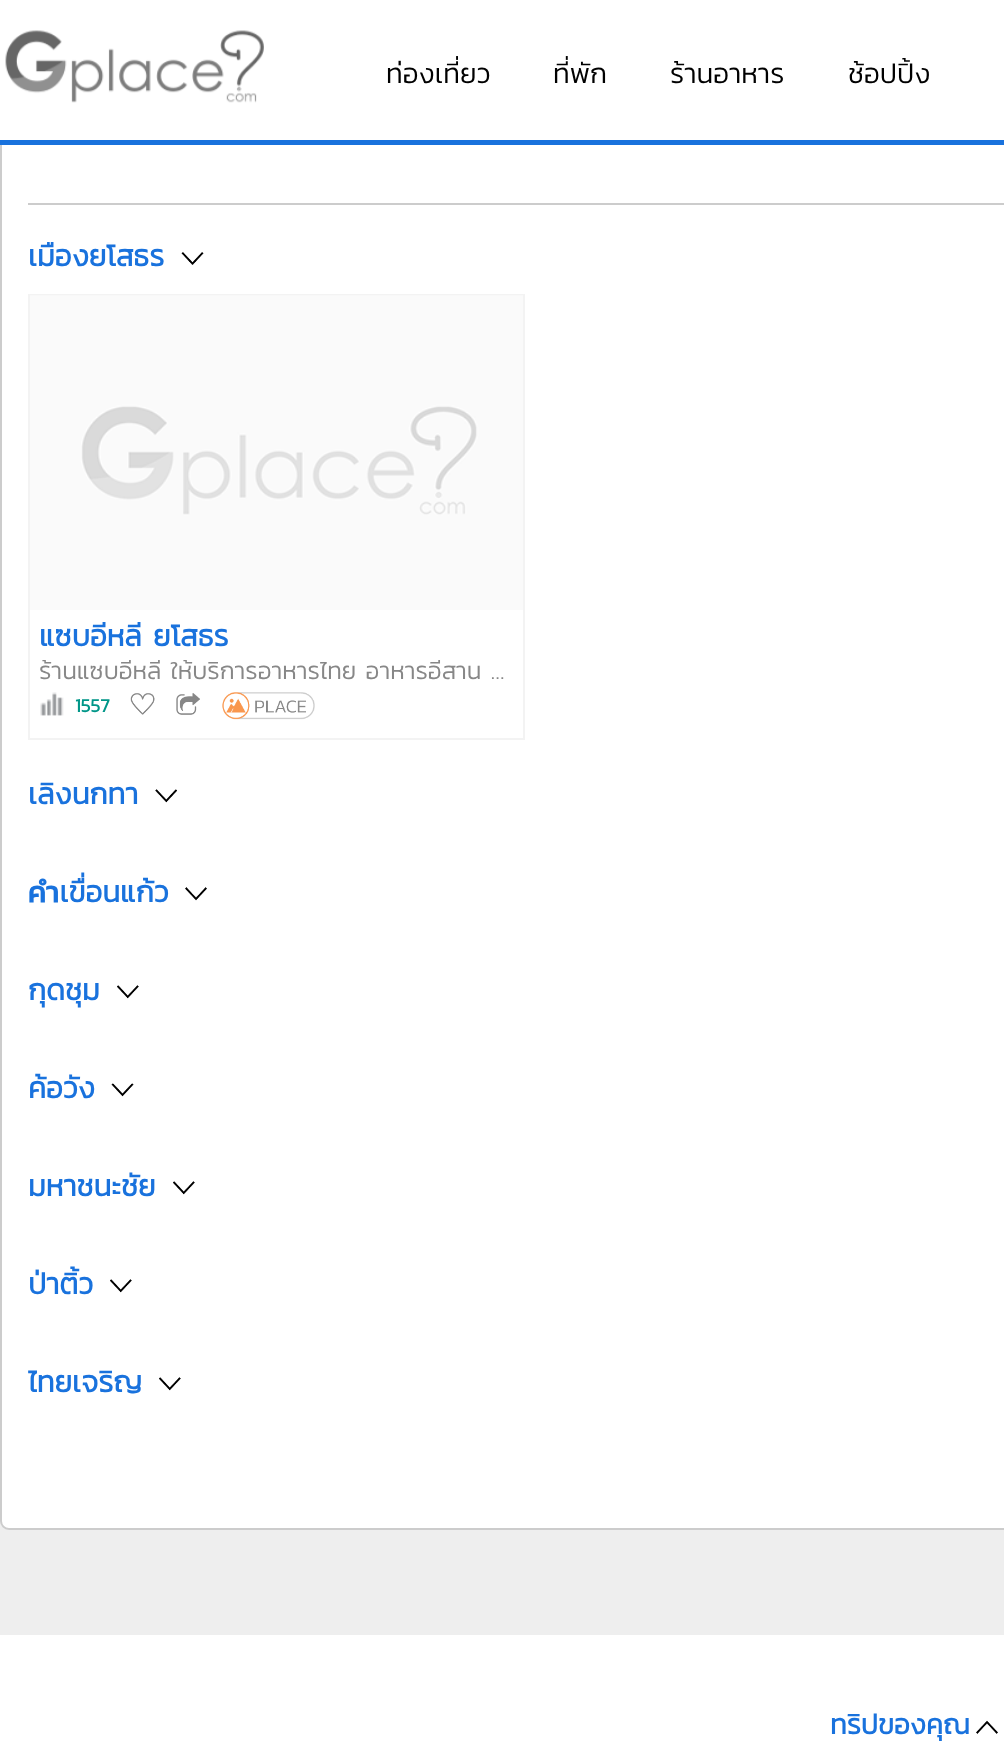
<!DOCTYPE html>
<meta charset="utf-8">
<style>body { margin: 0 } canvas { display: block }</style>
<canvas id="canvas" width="1004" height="1744"></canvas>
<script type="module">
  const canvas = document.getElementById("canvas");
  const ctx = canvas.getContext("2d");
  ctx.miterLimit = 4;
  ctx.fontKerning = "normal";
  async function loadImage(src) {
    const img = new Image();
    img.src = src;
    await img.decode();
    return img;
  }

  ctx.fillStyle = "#eeeeee";
  ctx.fillRect(0, 0, 1004, 1744);
  ctx.fillStyle = "#ffffff";
  ctx.beginPath();
  ctx.roundRect(1, -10, 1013, 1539, 8);
  ctx.fill();
  ctx.strokeStyle = "#cccccc";
  ctx.lineWidth = 2;
  ctx.stroke();
  ctx.fillRect(0, 0, 2, 140);
  ctx.fillStyle = "#1972dd";
  ctx.fillRect(0, 140, 1004, 5);
  ctx.drawImage(await loadImage("img1.png"), 5, 30, 259, 73);
  ctx.font = "300 28px Kanit";
  ctx.fillStyle = "#000000";
  ctx.fillText("ท่องเที่ยว", 386, 83);
  ctx.fillText("ที่พัก", 553, 83);
  ctx.fillText("ร้านอาหาร", 670, 83);
  ctx.fillText("ช้อปปิ้ง", 848, 83);
  ctx.fillStyle = "#cccccc";
  ctx.fillRect(28, 203, 976, 2);
  ctx.font = "bold 29.75px Kanit";
  ctx.fillStyle = "#1972dd";
  ctx.fillText("เมืองยโสธร", 28, 266);
  ctx.drawImage(await loadImage("img2.png"), 181, 252, 23, 13);
  ctx.strokeStyle = "#f3f3f3";
  ctx.strokeRect(29, 295, 495, 444);
  ctx.drawImage(await loadImage("img3.png"), 30, 295, 493, 315);
  ctx.fillText("แซบอีหลี ยโสธร", 39, 646);
  ctx.save();
  ctx.beginPath();
  ctx.rect(39, 660, 476, 24);
  ctx.clip();
  ctx.font = "300 24.5px Kanit";
  ctx.fillStyle = "#878787";
  ctx.fillText("ร้านแซบอีหลี ให้บริการอาหารไทย อาหารอีสาน …", 39, 679);
  ctx.restore();
  ctx.drawImage(await loadImage("img4.png"), 40, 692, 24, 24);
  ctx.font = "bold 19px Kanit";
  ctx.fillStyle = "#009688";
  ctx.fillText("1557", 75, 712);
  ctx.drawImage(await loadImage("img5.png"), 130, 693, 25, 22);
  ctx.drawImage(await loadImage("img6.png"), 176, 693, 24, 22);
  ctx.drawImage(await loadImage("img7.png"), 222, 692, 93, 28);
  ctx.font = "bold 29.75px Kanit";
  ctx.fillStyle = "#1972dd";
  ctx.fillText("เลิงนกทา", 28, 804);
  ctx.drawImage(await loadImage("img8.png"), 155, 789, 22, 14);
  ctx.fillText("คำเขื่อนแก้ว", 28, 902);
  ctx.drawImage(await loadImage("img9.png"), 185, 887, 22, 14);
  ctx.fillText("กุดชุม", 28, 1000);
  ctx.drawImage(await loadImage("img10.png"), 117, 985, 22, 14);
  ctx.fillText("ค้อวัง", 28, 1098);
  ctx.drawImage(await loadImage("img11.png"), 111, 1083, 23, 14);
  ctx.fillText("มหาชนะชัย", 28, 1196);
  ctx.drawImage(await loadImage("img10.png"), 173, 1181, 22, 14);
  ctx.fillText("ป่าติ้ว", 28, 1294);
  ctx.drawImage(await loadImage("img10.png"), 110, 1279, 22, 14);
  ctx.fillText("ไทยเจริญ", 28, 1392);
  ctx.drawImage(await loadImage("img12.png"), 159, 1377, 22, 14);
  ctx.fillStyle = "#ffffff";
  ctx.fillRect(0, 1635, 1004, 109);
  ctx.font = "bold 28px Kanit";
  ctx.fillStyle = "#1972dd";
  ctx.fillText("ทริปของคุณ", 830, 1734);
  ctx.drawImage(await loadImage("img13.png"), 976, 1720, 22, 14);
</script>
